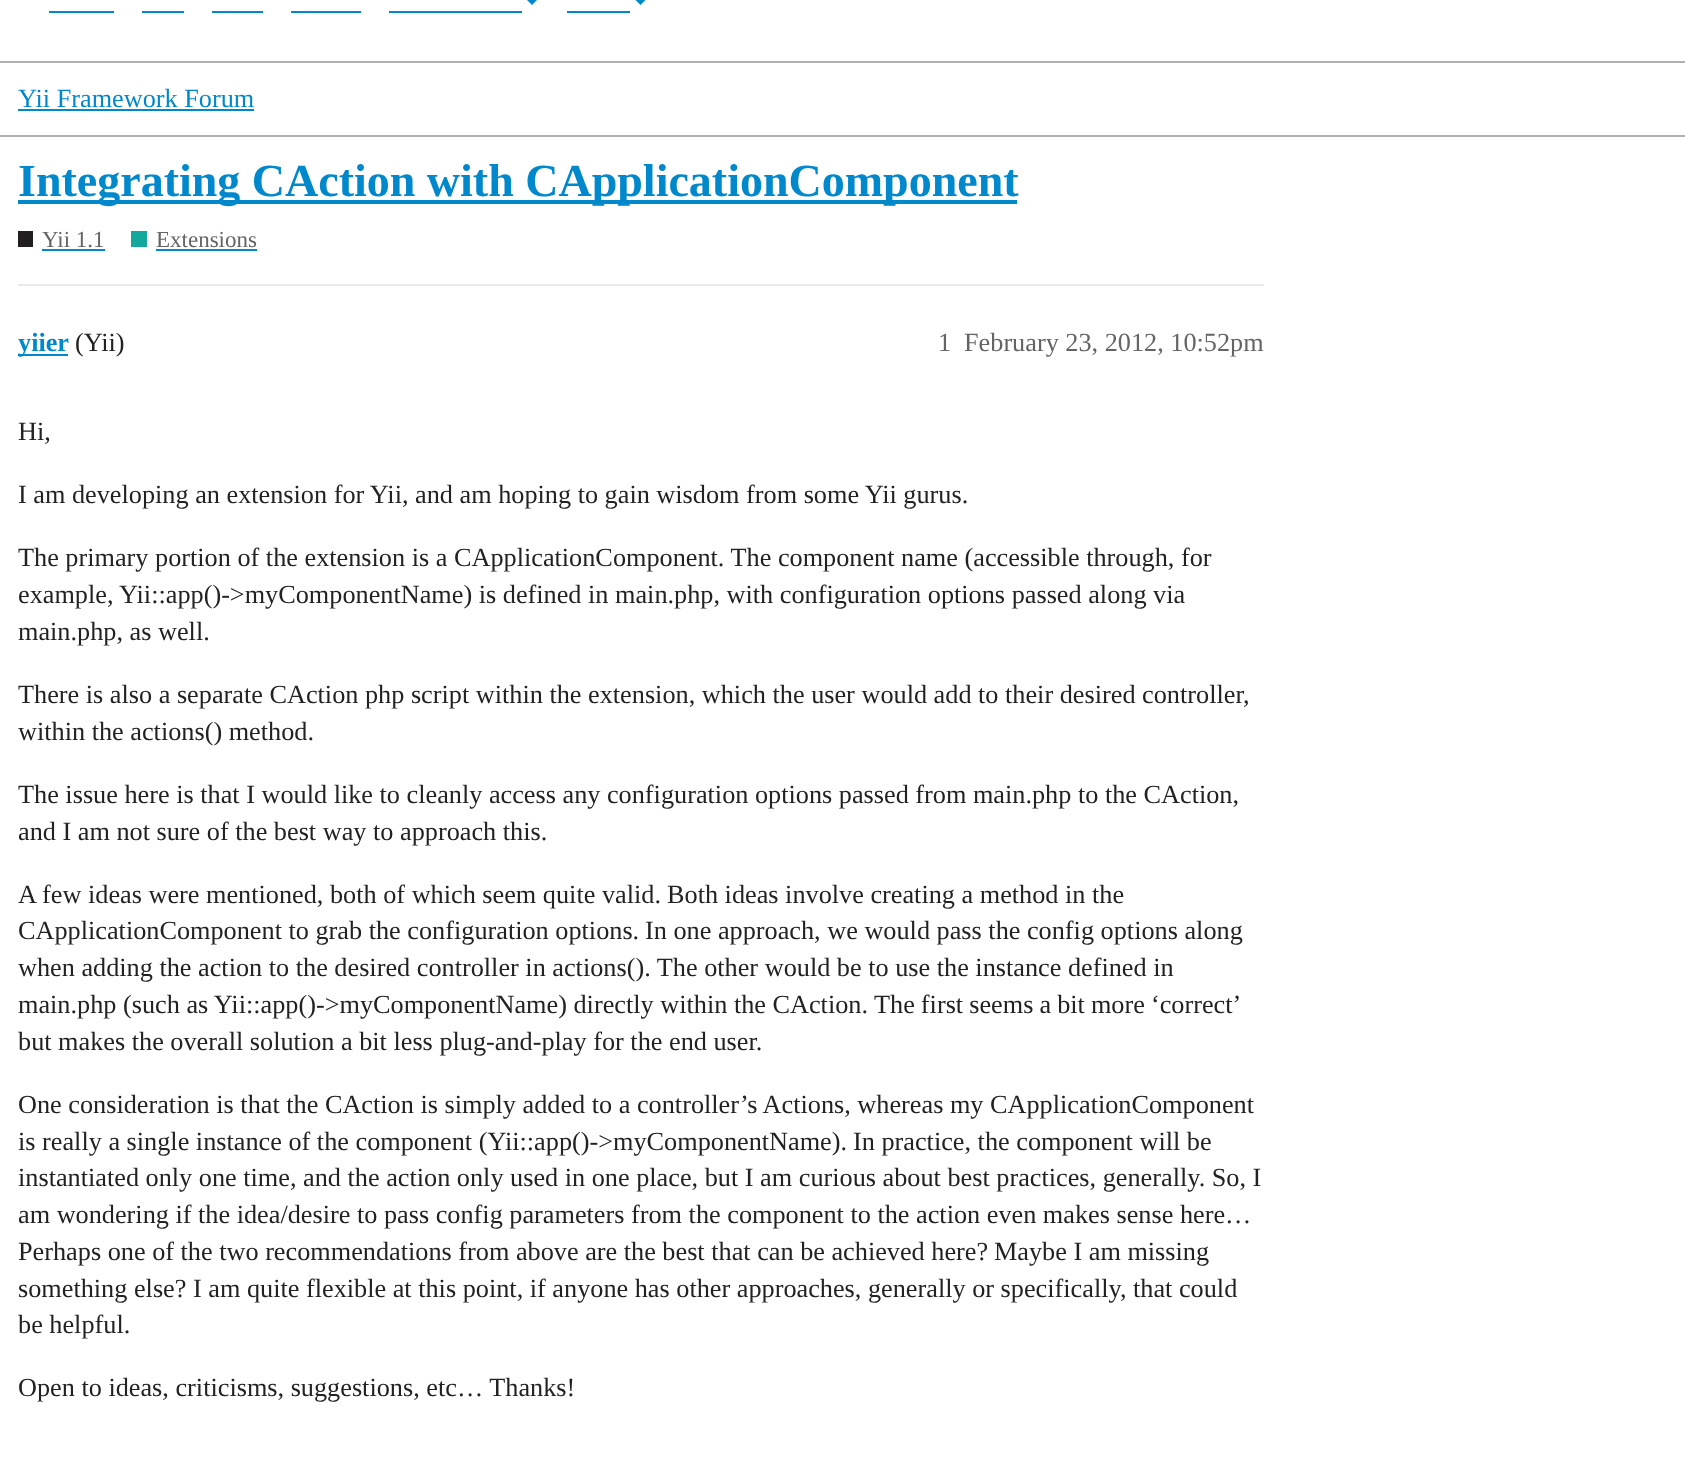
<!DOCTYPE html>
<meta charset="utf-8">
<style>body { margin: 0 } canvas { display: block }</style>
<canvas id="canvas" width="1685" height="1479"></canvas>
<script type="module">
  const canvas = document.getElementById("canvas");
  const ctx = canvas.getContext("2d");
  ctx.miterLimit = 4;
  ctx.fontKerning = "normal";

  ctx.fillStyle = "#ffffff";
  ctx.fillRect(0, 0, 1685, 1479);
  ctx.fillStyle = "#afafaf";
  ctx.fillRect(0, 61, 1685, 2);
  ctx.fillStyle = "#0088cc";
  ctx.fillRect(49, 11, 65, 2);
  ctx.fillRect(142, 11, 42, 2);
  ctx.fillRect(212, 11, 51, 2);
  ctx.fillRect(291, 11, 70, 2);
  ctx.beginPath();
  ctx.moveTo(525, -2);
  ctx.lineTo(539, -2);
  ctx.lineTo(532, 5);
  ctx.closePath();
  ctx.fill();
  ctx.fillRect(389, 11, 133, 2);
  ctx.beginPath();
  ctx.moveTo(633.5, -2);
  ctx.lineTo(647.5, -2);
  ctx.lineTo(640.5, 5);
  ctx.closePath();
  ctx.fill();
  ctx.fillRect(567, 11, 63, 2);
  ctx.fillStyle = "#afafaf";
  ctx.fillRect(0, 135, 1685, 2);
  ctx.font = "26.25px Liberation Serif";
  ctx.fillStyle = "#0088cc";
  ctx.fillText("Yii Framework Forum", 18, 107);
  ctx.fillRect(18, 109, 236, 2);
  ctx.fillRect(18, 200, 999, 4);
  ctx.font = "bold 46px Liberation Serif";
  ctx.fillText("Integrating CAction with CApplicationComponent", 18, 196);
  ctx.fillStyle = "#231f20";
  ctx.fillRect(18, 231, 15, 16);
  ctx.font = "23px Liberation Serif";
  ctx.fillStyle = "#646464";
  ctx.fillText("Yii 1.1", 42, 247);
  ctx.fillStyle = "#0088cc";
  ctx.fillRect(42, 249, 63, 2);
  ctx.fillStyle = "#12a89d";
  ctx.fillRect(131, 231, 16, 16);
  ctx.fillStyle = "#646464";
  ctx.fillText("Extensions", 156, 247);
  ctx.fillStyle = "#0088cc";
  ctx.fillRect(156, 249, 101, 2);
  ctx.fillStyle = "#e9e9e9";
  ctx.fillRect(18, 284, 1246, 2);
  ctx.fillStyle = "#0088cc";
  ctx.fillRect(18, 354, 50, 2);
  ctx.font = "bold 26.25px Liberation Serif";
  ctx.fillText("yiier", 18, 351);
  ctx.font = "26.25px Liberation Serif";
  ctx.fillStyle = "#222222";
  ctx.fillText("(Yii)", 75, 351);
  ctx.fillStyle = "#646464";
  ctx.fillText("1", 938, 351);
  ctx.fillText("February 23, 2012, 10:52pm", 964, 351);
  ctx.fillStyle = "#222222";
  ctx.fillText("Hi,", 18, 440);
  ctx.fillText("I am developing an extension for Yii, and am hoping to gain wisdom from some Yii gurus.", 18, 503);
  ctx.fillText("The primary portion of the extension is a CApplicationComponent. The component name (accessible through, for", 18, 566);
  ctx.fillText("example, Yii::app()->myComponentName) is defined in main.php, with configuration options passed along via", 18, 603);
  ctx.fillText("main.php, as well.", 18, 640);
  ctx.fillText("There is also a separate CAction php script within the extension, which the user would add to their desired controller,", 18, 703);
  ctx.fillText("within the actions() method.", 18, 740);
  ctx.fillText("The issue here is that I would like to cleanly access any configuration options passed from main.php to the CAction,", 18, 803);
  ctx.fillText("and I am not sure of the best way to approach this.", 18, 840);
  ctx.fillText("A few ideas were mentioned, both of which seem quite valid.", 18, 903);
  ctx.fillText("Both ideas involve creating a method in the", 667, 903);
  ctx.fillText("CApplicationComponent to grab the configuration options.", 18, 939);
  ctx.fillText("In one approach, we would pass the config options along", 645, 939);
  ctx.fillText("when adding the action to the desired controller in actions(). The other would be to use the instance defined in", 18, 976);
  ctx.fillText("main.php (such as Yii::app()->myComponentName) directly within the CAction.", 18, 1013);
  ctx.wordSpacing = "-0.5px";
  ctx.fillText("The first seems a bit more ‘correct’", 874, 1013);
  ctx.wordSpacing = "0px";
  ctx.fillText("but makes the overall solution a bit less plug-and-play for the end user.", 18, 1050);
  ctx.fillText("One consideration is that the CAction is simply added to a controller’s Actions, whereas my CApplicationComponent", 18, 1113);
  ctx.fillText("is really a single instance of the component (Yii::app()->myComponentName).", 18, 1150);
  ctx.fillText("In practice, the component will be", 853, 1150);
  ctx.fillText("instantiated only one time, and the action only used in one place, but I am curious about best practices, generally. So, I", 18, 1186);
  ctx.fillText("am wondering if the idea/desire to pass config parameters from the component to the action even makes sense here…", 18, 1223);
  ctx.fillText("Perhaps one of the two recommendations from above are the best that can be achieved here?", 18, 1260);
  ctx.fillText("Maybe I am missing", 994, 1260);
  ctx.fillText("something else? I am quite flexible at this point, if anyone has other approaches, generally or specifically, that could", 18, 1297);
  ctx.fillText("be helpful.", 18, 1333);
  ctx.fillText("Open to ideas, criticisms, suggestions, etc… Thanks!", 18, 1396);
</script>
